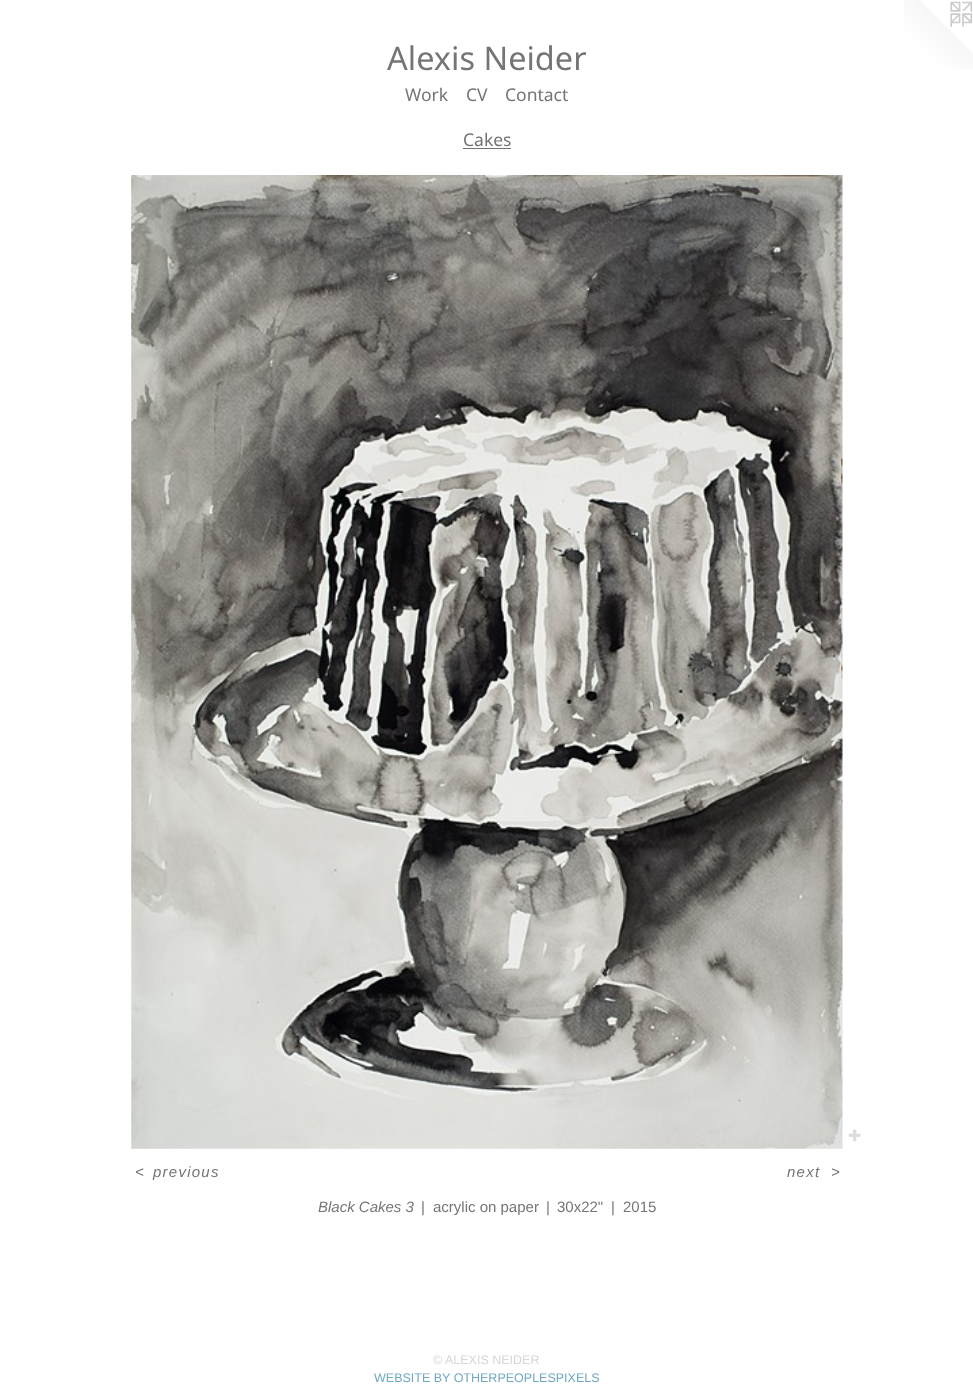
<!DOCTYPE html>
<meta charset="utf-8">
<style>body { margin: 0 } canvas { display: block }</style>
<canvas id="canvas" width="973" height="1391"></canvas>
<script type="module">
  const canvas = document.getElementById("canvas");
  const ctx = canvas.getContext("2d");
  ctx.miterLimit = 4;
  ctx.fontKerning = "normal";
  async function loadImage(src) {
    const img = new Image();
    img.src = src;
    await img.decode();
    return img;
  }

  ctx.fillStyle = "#ffffff";
  ctx.fillRect(0, 0, 973, 1391);
  ctx.font = "32.5px Noto Sans";
  ctx.fillStyle = "#757575";
  ctx.fillText("Alexis Neider", 387, 70);
  ctx.drawImage(await loadImage("img1.png"), 904, 0, 69, 69);
  ctx.font = "17.5px Noto Sans";
  ctx.fillText("Work", 405, 101);
  ctx.fillText("CV", 466, 101);
  ctx.fillText("Contact", 505, 101);
  ctx.fillText("Cakes", 463, 146);
  ctx.fillStyle = "#737373";
  ctx.fillRect(463, 148, 48, 1);
  ctx.drawImage(await loadImage("img2.png"), 131, 175, 712, 974);
  ctx.drawImage(await loadImage("img3.png"), 848, 1129, 13, 13);
  ctx.letterSpacing = "1.25px";
  ctx.font = "italic 15px Liberation Sans";
  ctx.fillStyle = "#757575";
  ctx.fillText("<", 135, 1177);
  ctx.fillText("previous", 153, 1177);
  ctx.fillText("next", 787, 1177);
  ctx.fillText(">", 831, 1177);
  ctx.letterSpacing = "0px";
  ctx.fillText("Black Cakes 3", 318, 1212);
  ctx.font = "15px Liberation Sans";
  ctx.fillText("|", 421, 1212);
  ctx.fillText("acrylic on paper", 433, 1212);
  ctx.fillText("|", 546, 1212);
  ctx.fillText("30x22\"", 557, 1212);
  ctx.fillText("|", 611, 1212);
  ctx.fillText("2015", 623, 1212);
  ctx.font = "12.5px Liberation Sans";
  ctx.fillStyle = "#d6d6d6";
  ctx.fillText("© ALEXIS NEIDER", 433, 1364);
  ctx.fillStyle = "#70a8c0";
  ctx.fillText("WEBSITE BY OTHERPEOPLESPIXELS", 374, 1382);
</script>
